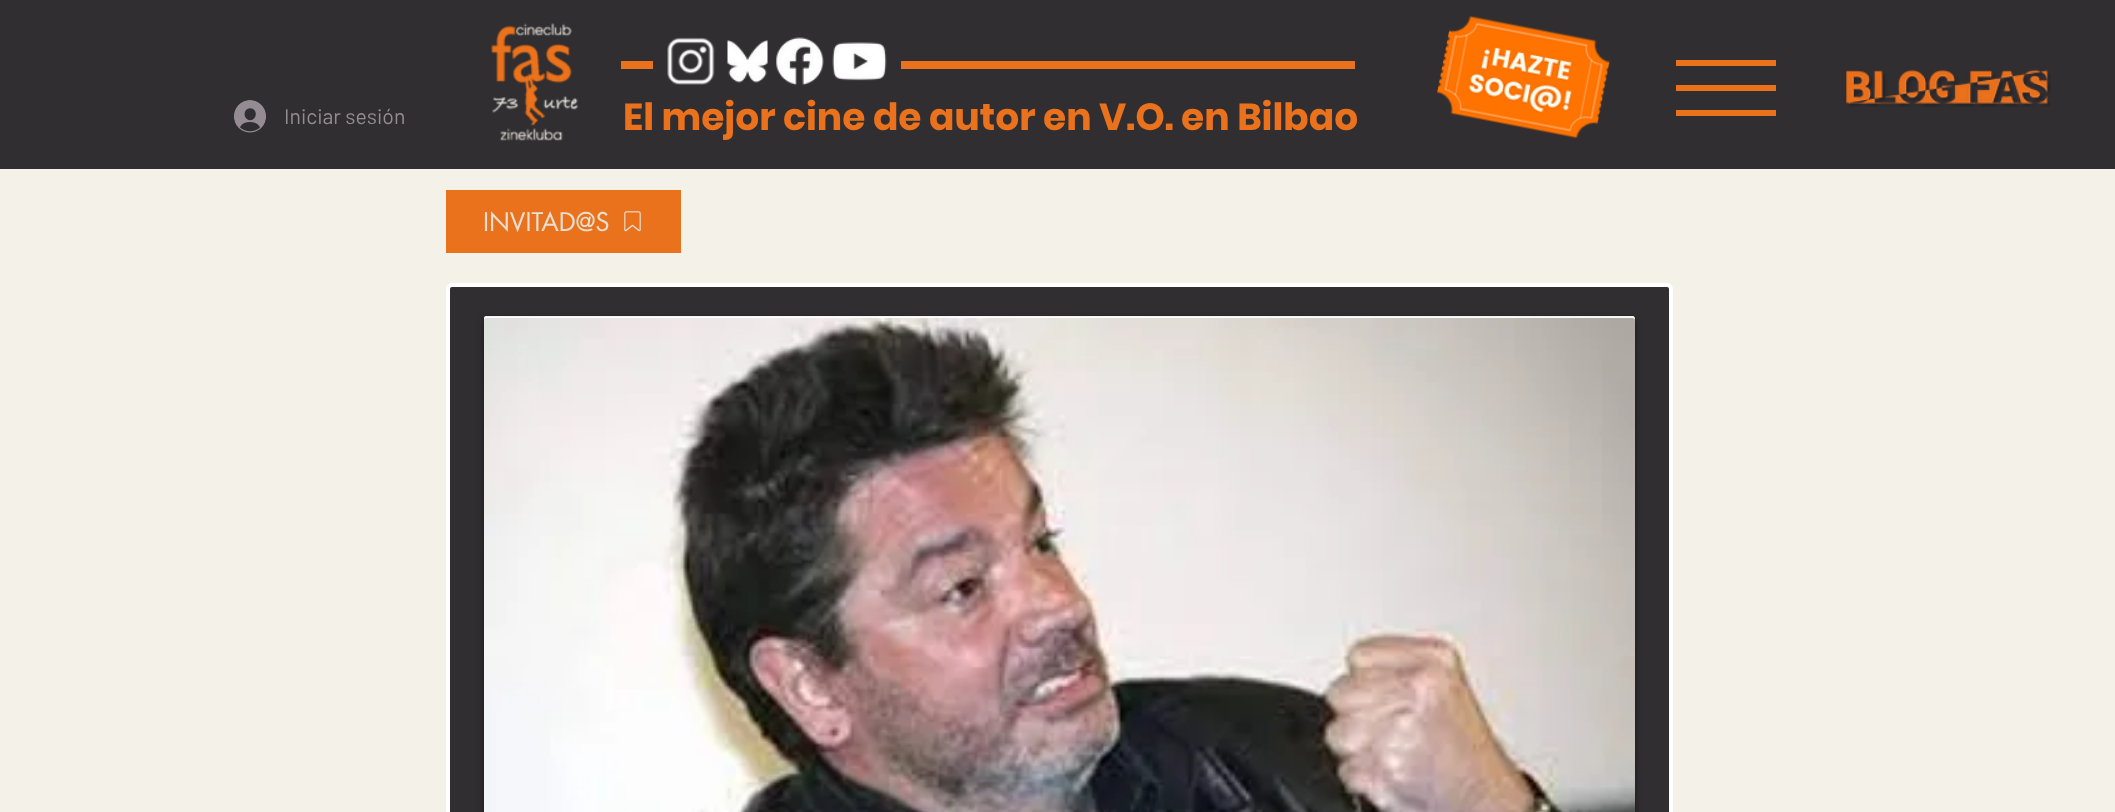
<!DOCTYPE html>
<meta charset="utf-8">
<style>body { margin: 0 } canvas { display: block }</style>
<canvas id="canvas" width="2115" height="812"></canvas>
<script type="module">
  const canvas = document.getElementById("canvas");
  const ctx = canvas.getContext("2d");
  ctx.miterLimit = 4;
  ctx.fontKerning = "normal";
  async function loadImage(src) {
    const img = new Image();
    img.src = src;
    await img.decode();
    return img;
  }

  ctx.fillStyle = "#f4f1e8";
  ctx.fillRect(0, 0, 2115, 812);
  ctx.fillStyle = "#312e31";
  ctx.fillRect(0, 0, 2115, 169);
  ctx.drawImage(await loadImage("img1.png"), 491, 23, 88, 118);
  ctx.fillStyle = "#eb721c";
  ctx.fillRect(621, 61, 32, 8);
  ctx.drawImage(await loadImage("img2.png"), 667, 37, 48, 48);
  ctx.drawImage(await loadImage("img3.png"), 727, 40, 41, 43);
  ctx.drawImage(await loadImage("img4.png"), 776, 37, 48, 49);
  ctx.drawImage(await loadImage("img5.png"), 832, 42, 55, 39);
  ctx.fillRect(901, 61, 454, 8);
  ctx.drawImage(await loadImage("img6.png"), 1437, 15, 173, 124);
  ctx.fillRect(1676, 60, 100, 6);
  ctx.fillRect(1676, 85, 100, 6);
  ctx.fillRect(1676, 110, 100, 6);
  ctx.drawImage(await loadImage("img7.png"), 1846, 69, 205, 38);
  ctx.drawImage(await loadImage("img8.png"), 234, 100, 32, 33);
  ctx.font = "21.25px Barlow";
  ctx.fillStyle = "#948b93";
  ctx.fillText("Iniciar sesión", 284, 124);
  ctx.font = "bold 37.5px Poppins";
  ctx.fillStyle = "#eb721c";
  ctx.fillText("El mejor cine de autor en V.O. en Bilbao", 623, 130);
  ctx.fillRect(446, 190, 235, 63);
  ctx.font = "25px futura";
  ctx.fillStyle = "#e6e0d3";
  ctx.fillText("INVITAD@S", 483, 231);
  ctx.drawImage(await loadImage("img9.png"), 624, 211, 17, 21);
  ctx.fillStyle = "#312e31";
  ctx.beginPath();
  ctx.roundRect(448, 285, 1223, 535, 4);
  ctx.fill();
  ctx.strokeStyle = "#ffffff";
  ctx.lineWidth = 4;
  ctx.stroke();
  ctx.fillStyle = "rgba(0, 0, 0, 0.53)";
  ctx.filter = "blur(3px)";
  ctx.beginPath();
  ctx.roundRect(484, 319, 1151, 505, 2.5);
  ctx.fill();
  ctx.filter = "none";
  ctx.drawImage(await loadImage("img10.png"), 484, 316, 1151, 496);
  ctx.fillStyle = "rgba(255, 255, 255, 0.92)";
  ctx.beginPath();
  ctx.moveTo(486, 318);
  ctx.bezierCurveTo(485, 318, 484, 319, 484, 320);
  ctx.bezierCurveTo(484, 318, 484, 316, 486, 316);
  ctx.lineTo(1632, 316);
  ctx.bezierCurveTo(1635, 316, 1635, 318, 1635, 320);
  ctx.bezierCurveTo(1635, 319, 1634, 318, 1632, 318);
  ctx.closePath();
  ctx.fill();
</script>
